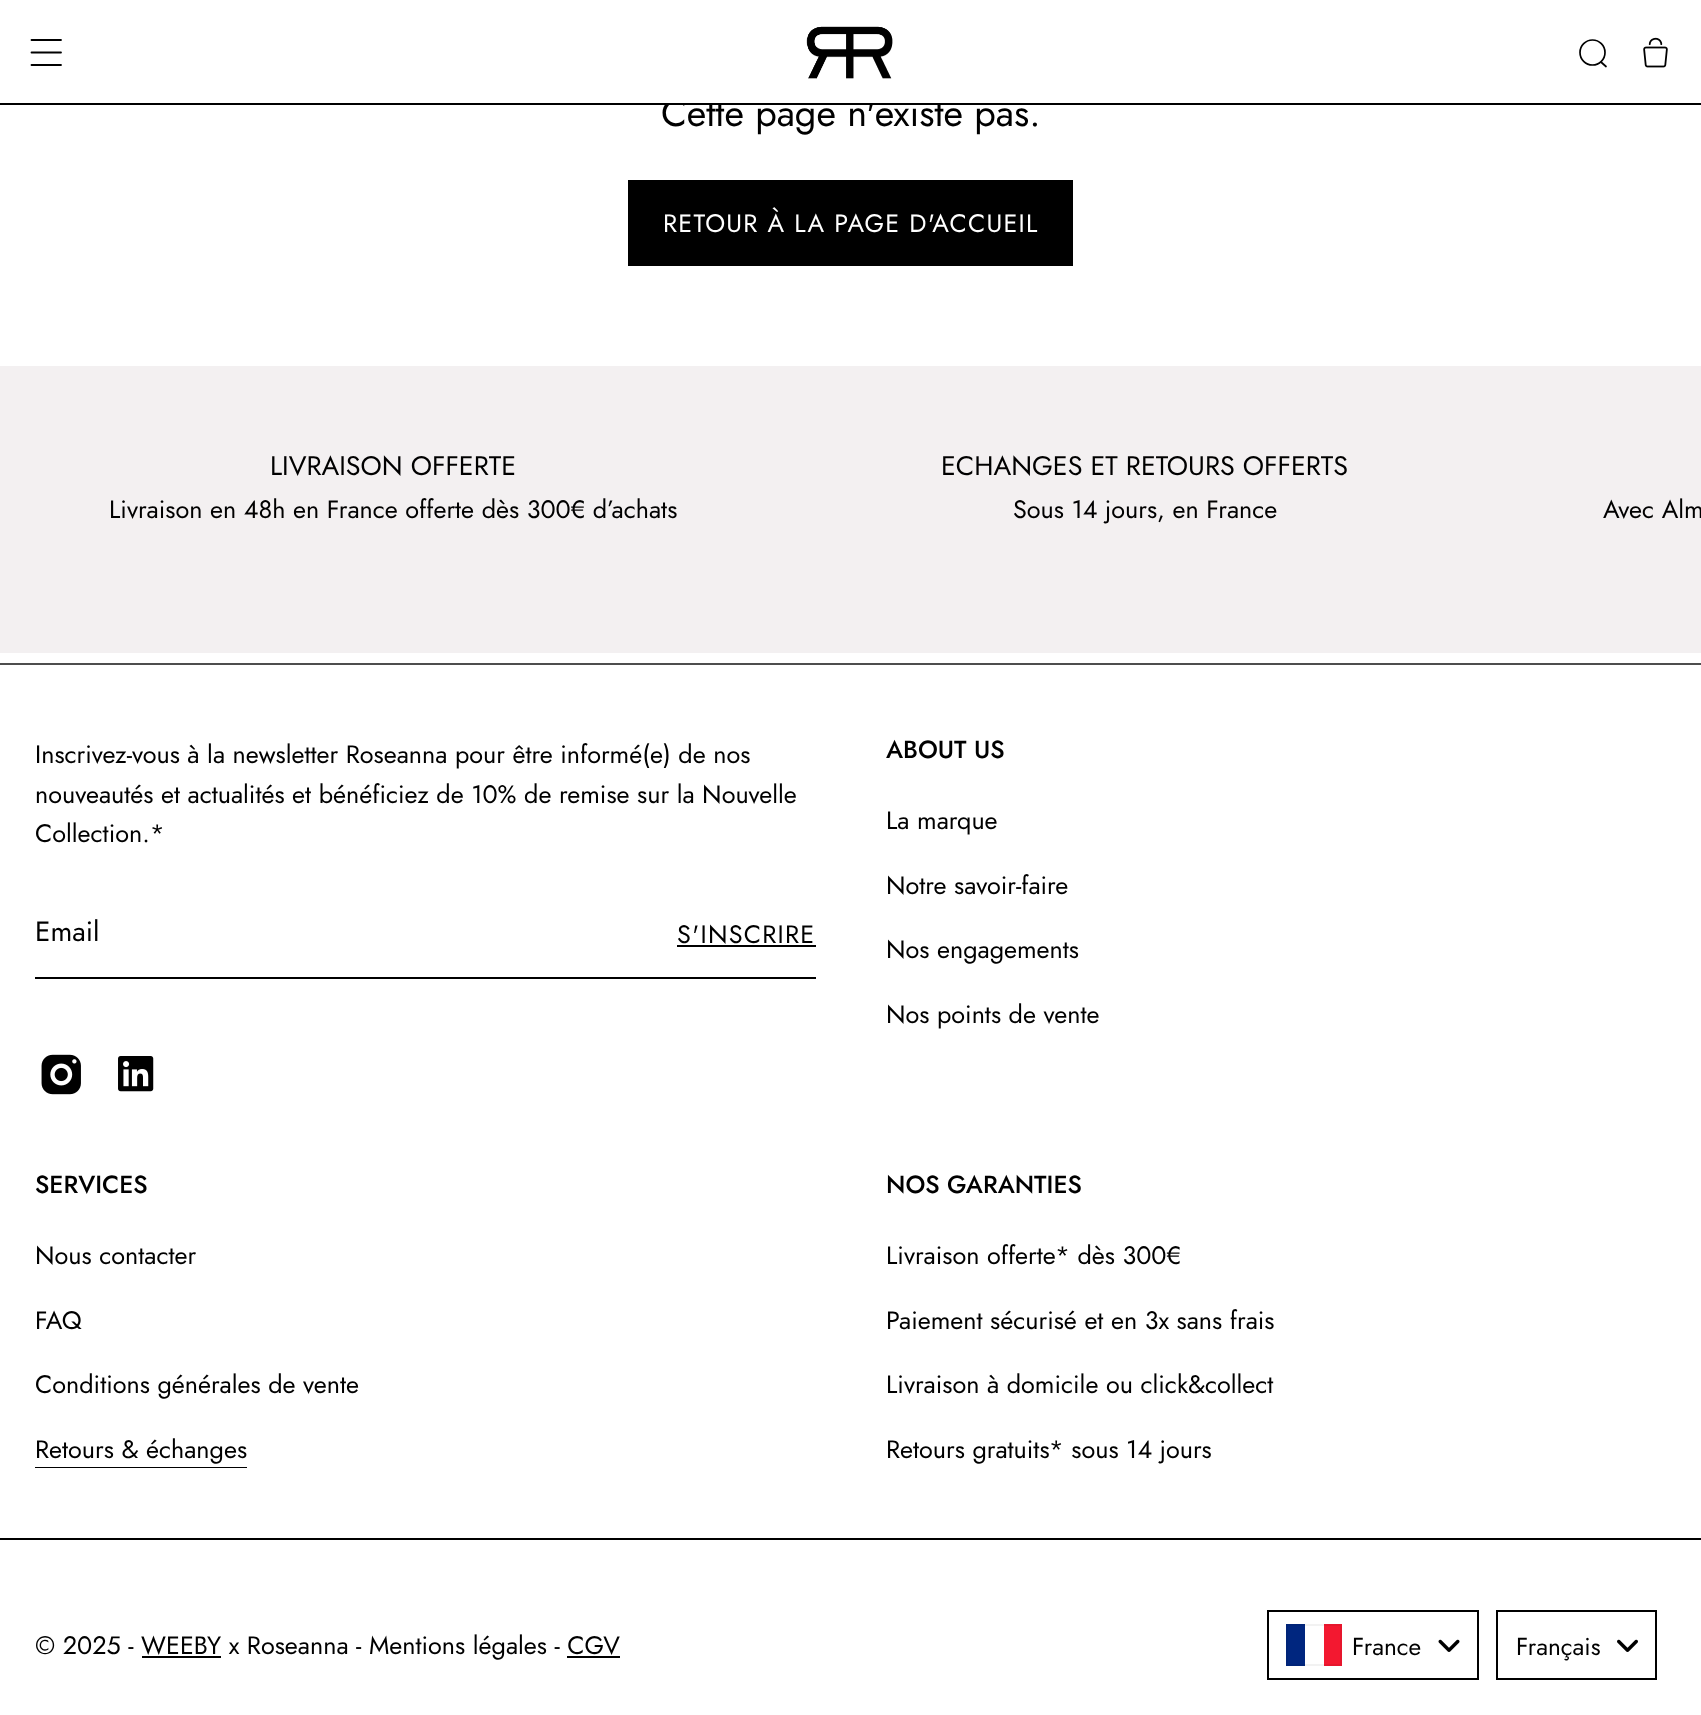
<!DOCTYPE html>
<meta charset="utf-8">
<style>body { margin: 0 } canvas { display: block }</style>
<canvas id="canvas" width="1701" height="1715"></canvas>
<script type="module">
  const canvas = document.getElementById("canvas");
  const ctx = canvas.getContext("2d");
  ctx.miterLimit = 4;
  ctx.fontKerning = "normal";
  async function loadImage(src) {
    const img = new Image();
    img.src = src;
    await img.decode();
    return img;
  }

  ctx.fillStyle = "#ffffff";
  ctx.fillRect(0, 0, 1701, 1715);
  ctx.font = "37.75px Jost";
  ctx.fillStyle = "#000000";
  ctx.fillText("Cette page n'existe pas.", 661, 126);
  ctx.fillStyle = "#ffffff";
  ctx.fillRect(666, 99, 275, 4);
  ctx.fillStyle = "#000000";
  ctx.fillRect(0, 103, 1701, 2);
  ctx.beginPath();
  ctx.moveTo(31.5, 40);
  ctx.lineTo(61, 40);
  ctx.moveTo(31.5, 52.5);
  ctx.lineTo(61, 52.5);
  ctx.moveTo(31.5, 65);
  ctx.lineTo(61, 65);
  ctx.strokeStyle = "#000000";
  ctx.lineWidth = 1.8;
  ctx.lineCap = "round";
  ctx.stroke();
  ctx.drawImage(await loadImage("img1.png"), 806, 26, 87, 53);
  ctx.beginPath();
  ctx.arc(1592.5, 52.5, 12.5, 0, Math.PI * 2);
  ctx.lineWidth = 1.7;
  ctx.stroke();
  ctx.beginPath();
  ctx.moveTo(1606, 66.5);
  ctx.lineTo(1601.5, 62.5);
  ctx.stroke();
  ctx.drawImage(await loadImage("img2.png"), 1643, 37, 25, 31);
  ctx.fillRect(628, 180, 445, 86);
  ctx.letterSpacing = "1.25px";
  ctx.font = "25.2px Jost";
  ctx.fillStyle = "#ffffff";
  ctx.fillText("RETOUR À LA PAGE D'ACCUEIL", 663, 232);
  ctx.fillStyle = "#f3f0f1";
  ctx.fillRect(0, 366, 1701, 287);
  ctx.letterSpacing = "0px";
  ctx.font = "26.9px Jost";
  ctx.fillStyle = "#000000";
  ctx.fillText("LIVRAISON OFFERTE", 270, 475);
  ctx.font = "25.2px Jost";
  ctx.fillText("Livraison en 48h en France offerte dès 300€ d’achats", 109, 518);
  ctx.font = "26.9px Jost";
  ctx.fillText("ECHANGES ET RETOURS OFFERTS", 941, 475);
  ctx.font = "25.2px Jost";
  ctx.fillText("Sous 14 jours, en France", 1013, 518);
  ctx.fillText("Avec Alm", 1603, 518);
  ctx.fillStyle = "#4d4d4d";
  ctx.fillRect(0, 663, 1701, 2);
  ctx.fillStyle = "#000000";
  ctx.fillText("Inscrivez-vous à la newsletter Roseanna pour être informé(e) de nos", 35, 763);
  ctx.fillText("nouveautés et actualités et bénéficiez de 10% de remise sur la Nouvelle", 35, 803);
  ctx.fillText("Collection.*", 35, 842);
  ctx.fillRect(35, 977, 781, 2);
  ctx.font = "28px Jost";
  ctx.fillText("Email", 35, 941);
  ctx.letterSpacing = "1.25px";
  ctx.font = "25.2px Jost";
  ctx.fillText("S'INSCRIRE", 677, 943);
  ctx.fillRect(677, 945, 139, 2);
  ctx.drawImage(await loadImage("img3.png"), 41, 1054, 40, 41);
  ctx.drawImage(await loadImage("img4.png"), 118, 1056, 36, 36);
  ctx.letterSpacing = "0px";
  ctx.font = "500 24.75px Jost";
  ctx.fillText("ABOUT US", 886, 758);
  ctx.font = "25.2px Jost";
  ctx.fillText("La marque", 886, 829);
  ctx.fillText("Notre savoir-faire", 886, 894);
  ctx.fillText("Nos engagements", 886, 958);
  ctx.fillText("Nos points de vente", 886, 1023);
  ctx.font = "500 24.75px Jost";
  ctx.fillText("SERVICES", 35, 1193);
  ctx.font = "25.2px Jost";
  ctx.fillText("Nous contacter", 35, 1264);
  ctx.fillText("FAQ", 35, 1329);
  ctx.fillText("Conditions générales de vente", 35, 1393);
  ctx.fillText("Retours & échanges", 35, 1458);
  ctx.fillRect(35, 1467, 212, 1);
  ctx.font = "500 24.75px Jost";
  ctx.fillText("NOS GARANTIES", 886, 1193);
  ctx.font = "25.2px Jost";
  ctx.fillText("Livraison offerte* dès 300€", 886, 1264);
  ctx.fillText("Paiement sécurisé et en 3x sans frais", 886, 1329);
  ctx.fillText("Livraison à domicile ou click&collect", 886, 1393);
  ctx.fillText("Retours gratuits* sous 14 jours", 886, 1458);
  ctx.fillRect(0, 1538, 1701, 2);
  ctx.fillText("© 2025 - WEEBY x Roseanna - Mentions légales - CGV", 35, 1654);
  ctx.fillRect(142, 1656, 79, 2);
  ctx.fillRect(567, 1656, 53, 2);
  ctx.drawImage(await loadImage("img5.png"), 1438, 1639, 22, 13);
  ctx.lineWidth = 2;
  ctx.strokeRect(1268, 1611, 210, 68);
  ctx.fillStyle = "#00267f";
  ctx.fillRect(1286, 1624, 19, 42);
  ctx.fillStyle = "#f31830";
  ctx.fillRect(1324, 1624, 18, 42);
  ctx.strokeStyle = "rgba(0, 0, 0, 0.05)";
  ctx.strokeRect(1287, 1625, 54, 40);
  ctx.font = "24.5px Jost";
  ctx.fillStyle = "#000000";
  ctx.fillText("France", 1352, 1655);
  ctx.drawImage(await loadImage("img6.png"), 1617, 1639, 21, 13);
  ctx.strokeStyle = "#000000";
  ctx.strokeRect(1497, 1611, 159, 68);
  ctx.fillText("Français", 1516, 1655);
</script>
